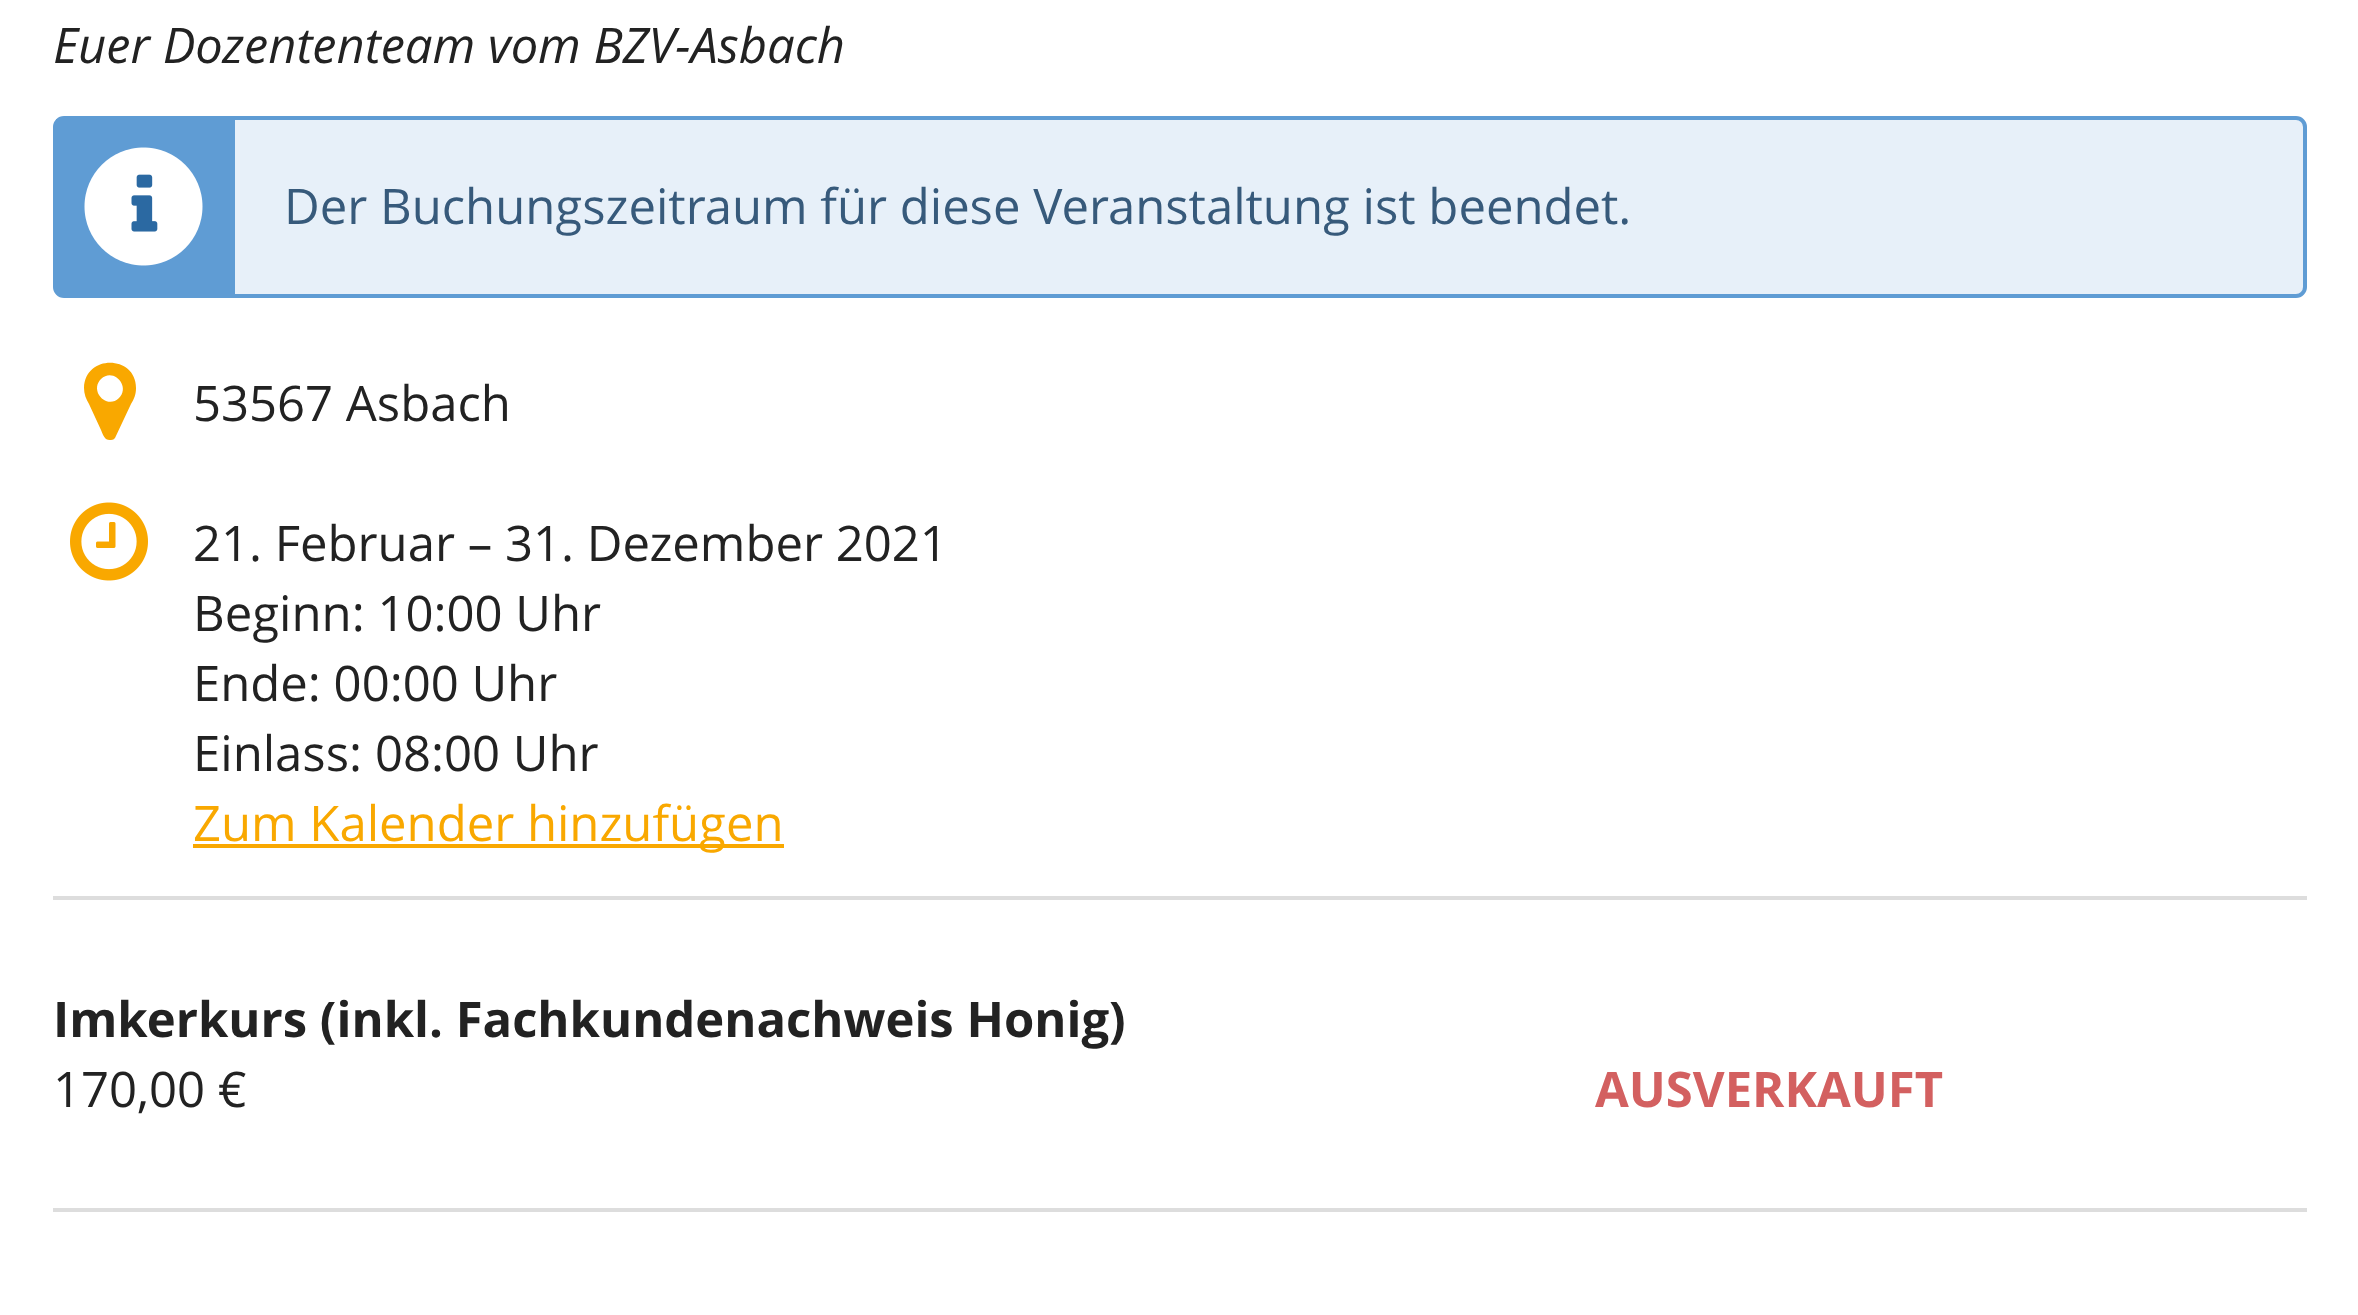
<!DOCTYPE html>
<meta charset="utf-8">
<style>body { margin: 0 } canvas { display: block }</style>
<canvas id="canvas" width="2358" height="1315"></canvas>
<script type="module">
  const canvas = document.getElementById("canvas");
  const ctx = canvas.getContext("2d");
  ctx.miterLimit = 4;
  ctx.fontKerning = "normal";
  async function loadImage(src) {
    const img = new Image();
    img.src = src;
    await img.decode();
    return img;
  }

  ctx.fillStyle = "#ffffff";
  ctx.fillRect(0, 0, 2358, 1315);
  ctx.font = "italic 49px Open Sans";
  ctx.fillStyle = "#222222";
  ctx.fillText("Euer Dozententeam vom BZV-Asbach", 53, 63);
  ctx.fillStyle = "#e7f0f9";
  ctx.beginPath();
  ctx.roundRect(55, 118, 2250, 178, 9);
  ctx.fill();
  ctx.strokeStyle = "#5f9cd4";
  ctx.lineWidth = 4;
  ctx.stroke();
  ctx.fillStyle = "#5f9cd4";
  ctx.fillRect(56, 119, 179, 175);
  ctx.drawImage(await loadImage("img1.png"), 84, 147, 119, 119);
  ctx.font = "49px Open Sans";
  ctx.fillStyle = "#375a7b";
  ctx.fillText("Der Buchungszeitraum für diese Veranstaltung ist beendet.", 284, 224);
  ctx.fillStyle = "#f9a800";
  ctx.beginPath();
  ctx.moveTo(119, 398);
  ctx.bezierCurveTo(131, 386, 113, 367, 101, 379);
  ctx.bezierCurveTo(89, 391, 107, 410, 119, 398);
  ctx.closePath();
  ctx.moveTo(136, 388);
  ctx.bezierCurveTo(136, 395, 134, 399, 131, 404);
  ctx.lineTo(115, 438);
  ctx.bezierCurveTo(114, 439, 113, 440, 111, 440);
  ctx.bezierCurveTo(105, 441, 103, 435, 101, 430);
  ctx.lineTo(89, 404);
  ctx.bezierCurveTo(86, 399, 84, 394, 84, 388);
  ctx.bezierCurveTo(85, 354, 136, 355, 136, 388);
  ctx.closePath();
  ctx.fill();
  ctx.fillStyle = "#222222";
  ctx.fillText("53567 Asbach", 193, 421);
  ctx.drawImage(await loadImage("img2.png"), 70, 502, 78, 79);
  ctx.fillText("21. Februar – 31. Dezember 2021", 193, 561);
  ctx.fillText("Beginn: 10:00 Uhr", 193, 631);
  ctx.fillText("Ende: 00:00 Uhr", 193, 701);
  ctx.fillText("Einlass: 08:00 Uhr", 193, 771);
  ctx.fillStyle = "#f9a800";
  ctx.fillRect(193, 844, 591, 4);
  ctx.fillText("Zum Kalender hinzufügen", 193, 841);
  ctx.fillStyle = "#dddddd";
  ctx.fillRect(53, 896, 2254, 4);
  ctx.font = "bold 49px Open Sans";
  ctx.fillStyle = "#222222";
  ctx.fillText("Imkerkurs (inkl. Fachkundenachweis Honig)", 53, 1037);
  ctx.font = "49px Open Sans";
  ctx.fillText("170,00 €", 53, 1107);
  ctx.font = "bold 49px Open Sans";
  ctx.fillStyle = "#d36060";
  ctx.fillText("AUSVERKAUFT", 1595, 1107);
  ctx.fillStyle = "#dddddd";
  ctx.fillRect(53, 1208, 2254, 4);
</script>
